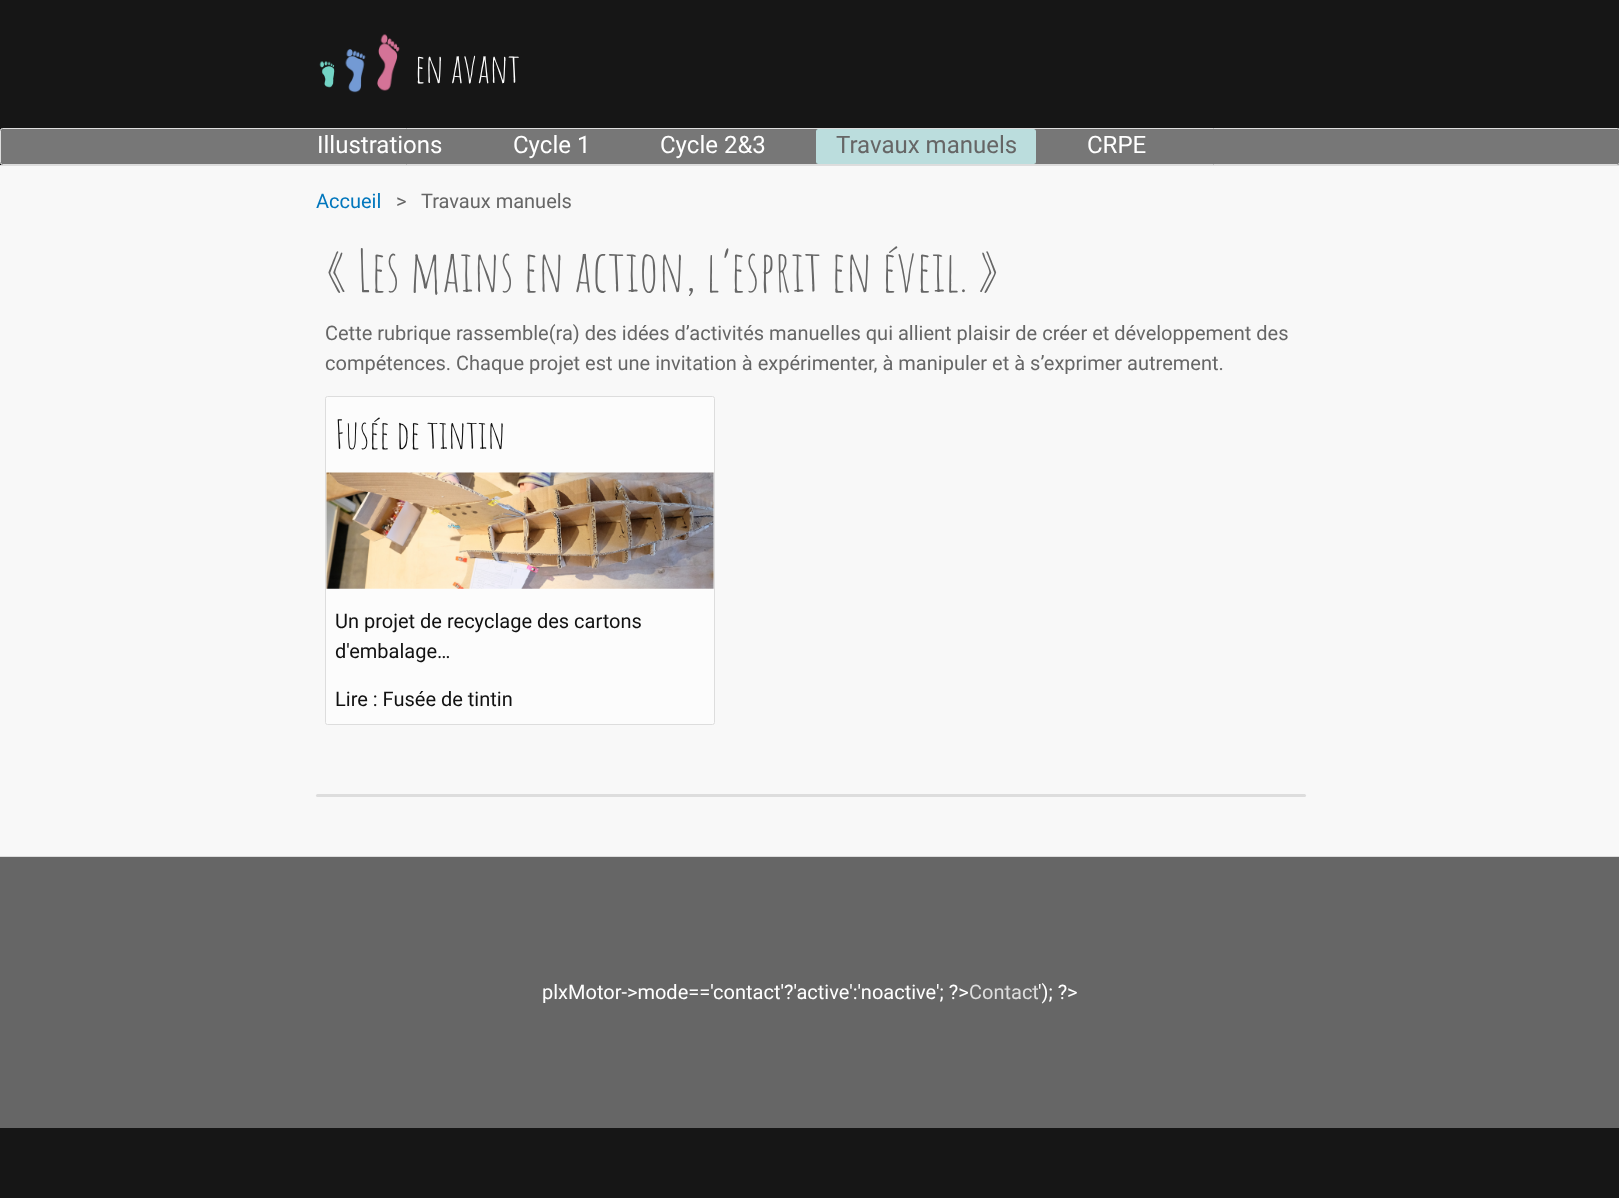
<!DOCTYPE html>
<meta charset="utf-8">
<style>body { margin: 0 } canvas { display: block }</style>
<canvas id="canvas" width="1619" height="1198"></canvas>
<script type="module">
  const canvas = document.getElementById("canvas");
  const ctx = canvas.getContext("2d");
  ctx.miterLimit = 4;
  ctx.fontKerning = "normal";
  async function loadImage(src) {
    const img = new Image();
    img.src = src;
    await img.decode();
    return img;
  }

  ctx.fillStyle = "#161616";
  ctx.fillRect(0, 0, 1619, 1198);
  ctx.fillStyle = "#f8f8f8";
  ctx.fillRect(0, 166, 1619, 690);
  ctx.fillStyle = "#dddddd";
  ctx.fillRect(0, 165, 1619, 1);
  ctx.drawImage(await loadImage("img1.png"), 319, 34, 81, 59);
  ctx.font = "40px Amatic SC";
  ctx.fillStyle = "#ffffff";
  ctx.fillText("en avant", 415, 83);
  ctx.fillStyle = "#777777";
  ctx.beginPath();
  ctx.roundRect(0.5, 128.5, 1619, 36, 2);
  ctx.fill();
  ctx.strokeStyle = "#dddddd";
  ctx.stroke();
  ctx.font = "24px Roboto";
  ctx.fillStyle = "#ffffff";
  ctx.fillText("Illustrations", 317, 153);
  ctx.fillText("Cycle 1", 513, 153);
  ctx.fillText("Cycle 2&3", 660, 153);
  ctx.fillStyle = "#bbdddd";
  ctx.beginPath();
  ctx.roundRect(816, 129, 220, 35, 2.5);
  ctx.fill();
  ctx.fillStyle = "#666666";
  ctx.fillText("Travaux manuels", 836, 153);
  ctx.fillStyle = "#ffffff";
  ctx.fillText("CRPE", 1087, 153);
  ctx.font = "20px Roboto";
  ctx.fillStyle = "#0277bd";
  ctx.fillText("Accueil", 316, 208);
  ctx.fillStyle = "#666666";
  ctx.fillText(">", 396, 208);
  ctx.fillText("Travaux manuels", 421, 208);
  ctx.font = "57.1px Amatic SC";
  ctx.fillText("« Les mains en action, l’esprit en éveil. »", 325, 292);
  ctx.font = "20px Roboto";
  ctx.fillText("Cette rubrique rassemble(ra) des idées d’activités manuelles qui allient plaisir de créer et développement des", 325, 340);
  ctx.fillText("compétences. Chaque projet est une invitation à expérimenter, à manipuler et à s’exprimer autrement.", 325, 370);
  ctx.fillStyle = "#fcfcfc";
  ctx.beginPath();
  ctx.roundRect(325.5, 396.5, 389, 328, 2);
  ctx.fill();
  ctx.stroke();
  ctx.font = "39.5px Amatic SC";
  ctx.fillStyle = "#111111";
  ctx.fillText("Fusée de tintin", 335, 449);
  ctx.drawImage(await loadImage("img2.png"), 326, 472, 388, 117);
  ctx.font = "20px Roboto";
  ctx.fillText("Un projet de recyclage des cartons", 335, 628);
  ctx.fillText("d'embalage…", 335, 658);
  ctx.fillText("Lire : Fusée de tintin", 335, 706);
  ctx.fillStyle = "#dddddd";
  ctx.beginPath();
  ctx.roundRect(316, 794, 990, 3, 1.5);
  ctx.fill();
  ctx.fillStyle = "#666666";
  ctx.fillRect(0, 857, 1619, 271);
  ctx.fillStyle = "#dddddd";
  ctx.fillRect(0, 856, 1619, 1);
  ctx.fillStyle = "#ffffff";
  ctx.fillText("plxMotor->mode=='contact'?'active':'noactive'; ?>", 542, 999);
  ctx.fillStyle = "#dddddd";
  ctx.fillText("Contact", 969, 999);
  ctx.fillStyle = "#ffffff";
  ctx.fillText("'); ?>", 1038, 999);
</script>
